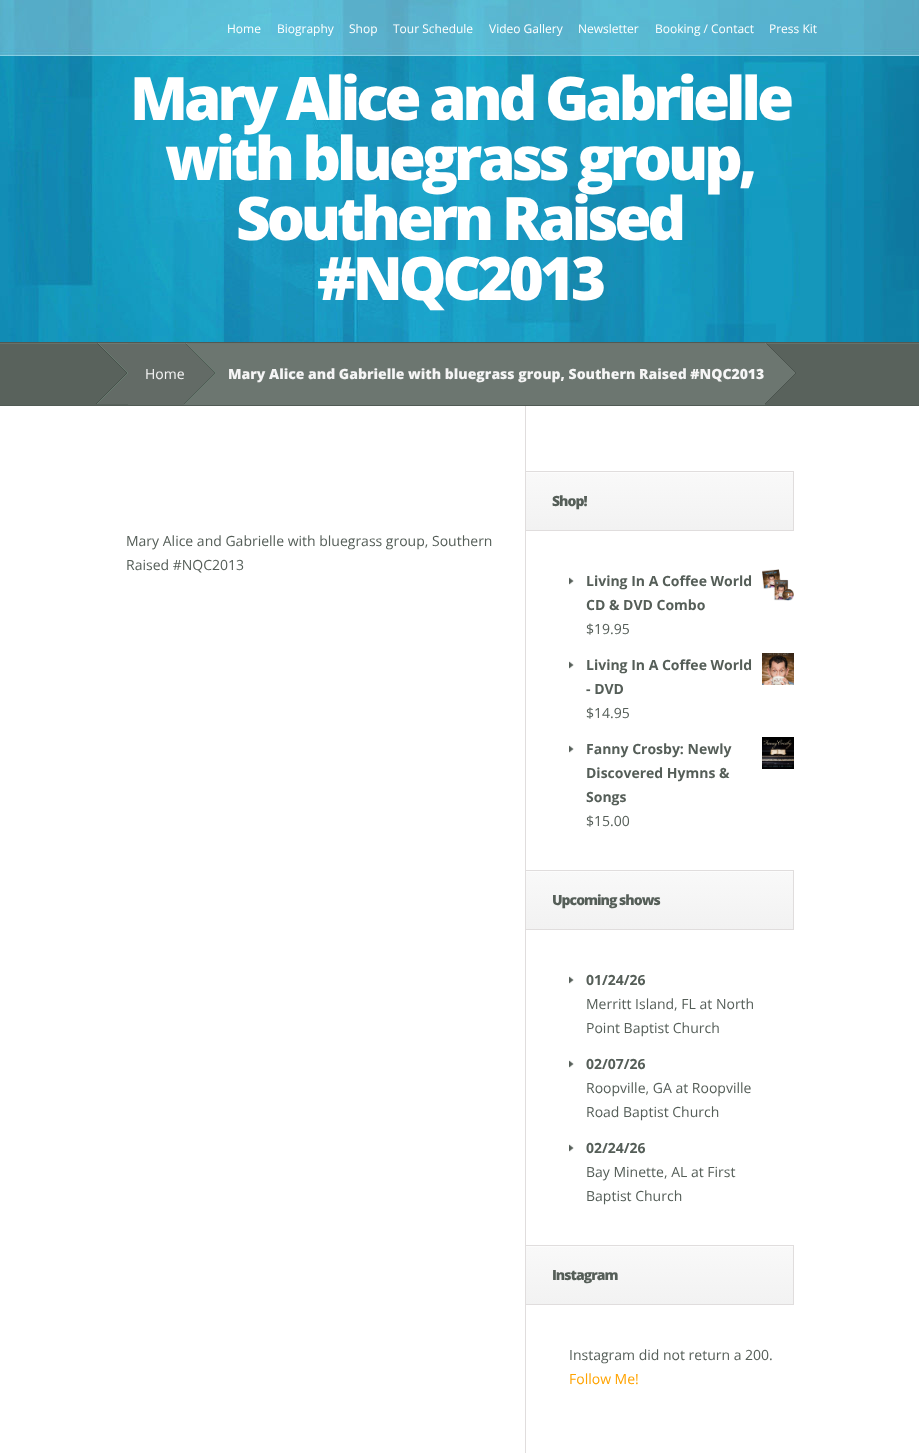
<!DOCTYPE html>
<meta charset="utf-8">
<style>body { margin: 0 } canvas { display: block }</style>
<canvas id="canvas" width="919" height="1453"></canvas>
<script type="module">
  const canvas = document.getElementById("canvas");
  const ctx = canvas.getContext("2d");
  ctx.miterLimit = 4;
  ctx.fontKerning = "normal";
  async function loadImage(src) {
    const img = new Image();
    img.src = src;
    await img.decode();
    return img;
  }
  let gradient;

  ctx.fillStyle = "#ffffff";
  ctx.fillRect(0, 0, 919, 1453);
  ctx.drawImage(await loadImage("img1.png"), 0, 0, 919, 342);
  ctx.font = "12px Open Sans";
  ctx.fillText("Home", 227, 33);
  ctx.fillText("Biography", 277, 33);
  ctx.fillText("Shop", 349, 33);
  ctx.fillText("Tour Schedule", 393, 33);
  ctx.fillText("Video Gallery", 489, 33);
  ctx.fillText("Newsletter", 578, 33);
  ctx.fillText("Booking / Contact", 655, 33);
  ctx.fillText("Press Kit", 769, 33);
  ctx.letterSpacing = "-4px";
  ctx.font = "800 60px Open Sans";
  ctx.fillText("Mary Alice and Gabrielle", 130, 120);
  ctx.fillText("with bluegrass group,", 165, 180);
  ctx.fillText("Southern Raised", 236, 240);
  ctx.fillText("#NQC2013", 317, 300);
  ctx.fillStyle = "#59625c";
  ctx.fillRect(0, 344, 919, 61);
  ctx.fillStyle = "#67716a";
  ctx.fillRect(0, 343, 919, 1);
  ctx.fillStyle = "#515953";
  ctx.fillRect(0, 342, 919, 1);
  ctx.fillStyle = "#515b55";
  ctx.fillRect(0, 405, 919, 1);
  ctx.fillStyle = "#6c7670";
  ctx.fillRect(128, 343, 637, 62);
  ctx.drawImage(await loadImage("img2.png"), 96, 343, 32, 61);
  ctx.fillStyle = "#636b66";
  ctx.fillRect(128, 344, 56, 61);
  ctx.letterSpacing = "0px";
  ctx.font = "14px Open Sans";
  ctx.fillStyle = "#f5f5f5";
  ctx.fillText("Home", 145, 379);
  ctx.drawImage(await loadImage("img3.png"), 184, 343, 32, 61);
  ctx.font = "800 14px Open Sans";
  ctx.fillText("Mary Alice and Gabrielle with bluegrass group, Southern Raised #NQC2013", 228, 379);
  ctx.drawImage(await loadImage("img4.png"), 765, 343, 31, 61);
  ctx.font = "14px Open Sans";
  ctx.fillStyle = "#555e58";
  ctx.fillText("Mary Alice and Gabrielle with bluegrass group, Southern", 126, 546);
  ctx.fillText("Raised #NQC2013", 126, 570);
  gradient = ctx.createLinearGradient(660, 472, 660, 530);
  gradient.addColorStop(0, "#f9f9f9");
  gradient.addColorStop(1, "#f2f2f2");
  ctx.fillStyle = gradient;
  ctx.fillRect(526, 473, 267, 57);
  ctx.fillStyle = "#fcfcfc";
  ctx.fillRect(526, 472, 267, 1);
  ctx.strokeStyle = "#e0dddd";
  ctx.strokeRect(525.5, 471.5, 268, 59);
  gradient = ctx.createLinearGradient(660, 871, 660, 929);
  gradient.addColorStop(0, "#f9f9f9");
  gradient.addColorStop(1, "#f2f2f2");
  ctx.fillStyle = gradient;
  ctx.fillRect(526, 872, 267, 57);
  ctx.fillStyle = "#fcfcfc";
  ctx.fillRect(526, 871, 267, 1);
  ctx.strokeRect(525.5, 870.5, 268, 59);
  gradient = ctx.createLinearGradient(660, 1246, 660, 1304);
  gradient.addColorStop(0, "#f9f9f9");
  gradient.addColorStop(1, "#f2f2f2");
  ctx.fillStyle = gradient;
  ctx.fillRect(526, 1247, 267, 57);
  ctx.fillStyle = "#fcfcfc";
  ctx.fillRect(526, 1246, 267, 1);
  ctx.strokeRect(525.5, 1245.5, 268, 59);
  ctx.fillStyle = "#e0dddd";
  ctx.fillRect(525, 406, 1, 1047);
  ctx.letterSpacing = "-1px";
  ctx.font = "800 14px Open Sans";
  ctx.fillStyle = "#555e58";
  ctx.fillText("Shop!", 552, 506);
  ctx.drawImage(await loadImage("img5.png"), 569, 577, 5, 8);
  ctx.letterSpacing = "0px";
  ctx.font = "bold 14px Open Sans";
  ctx.fillText("Living In A Coffee World", 586, 586);
  ctx.drawImage(await loadImage("img6.png"), 762, 569, 32, 32);
  ctx.fillText("CD & DVD Combo", 586, 610);
  ctx.font = "14px Open Sans";
  ctx.fillText("$19.95", 586, 634);
  ctx.drawImage(await loadImage("img5.png"), 569, 661, 5, 8);
  ctx.font = "bold 14px Open Sans";
  ctx.fillText("Living In A Coffee World", 586, 670);
  ctx.drawImage(await loadImage("img7.png"), 762, 653, 32, 32);
  ctx.fillText("- DVD", 586, 694);
  ctx.font = "14px Open Sans";
  ctx.fillText("$14.95", 586, 718);
  ctx.drawImage(await loadImage("img5.png"), 569, 745, 5, 8);
  ctx.font = "bold 14px Open Sans";
  ctx.fillText("Fanny Crosby: Newly", 586, 754);
  ctx.drawImage(await loadImage("img8.png"), 762, 737, 32, 32);
  ctx.fillText("Discovered Hymns &", 586, 778);
  ctx.fillText("Songs", 586, 802);
  ctx.font = "14px Open Sans";
  ctx.fillText("$15.00", 586, 826);
  ctx.letterSpacing = "-1px";
  ctx.font = "800 14px Open Sans";
  ctx.fillText("Upcoming shows", 552, 905);
  ctx.drawImage(await loadImage("img5.png"), 569, 976, 5, 8);
  ctx.letterSpacing = "0px";
  ctx.font = "bold 14px Open Sans";
  ctx.fillText("01/24/26", 586, 985);
  ctx.font = "14px Open Sans";
  ctx.fillText("Merritt Island, FL at North", 586, 1009);
  ctx.fillText("Point Baptist Church", 586, 1033);
  ctx.drawImage(await loadImage("img5.png"), 569, 1060, 5, 8);
  ctx.font = "bold 14px Open Sans";
  ctx.fillText("02/07/26", 586, 1069);
  ctx.font = "14px Open Sans";
  ctx.fillText("Roopville, GA at Roopville", 586, 1093);
  ctx.fillText("Road Baptist Church", 586, 1117);
  ctx.drawImage(await loadImage("img5.png"), 569, 1144, 5, 8);
  ctx.font = "bold 14px Open Sans";
  ctx.fillText("02/24/26", 586, 1153);
  ctx.font = "14px Open Sans";
  ctx.fillText("Bay Minette, AL at First", 586, 1177);
  ctx.fillText("Baptist Church", 586, 1201);
  ctx.letterSpacing = "-1px";
  ctx.font = "800 14px Open Sans";
  ctx.fillText("Instagram", 552, 1280);
  ctx.letterSpacing = "0px";
  ctx.font = "14px Open Sans";
  ctx.fillText("Instagram did not return a 200.", 569, 1360);
  ctx.fillStyle = "#ffa300";
  ctx.fillText("Follow Me!", 569, 1384);
</script>
